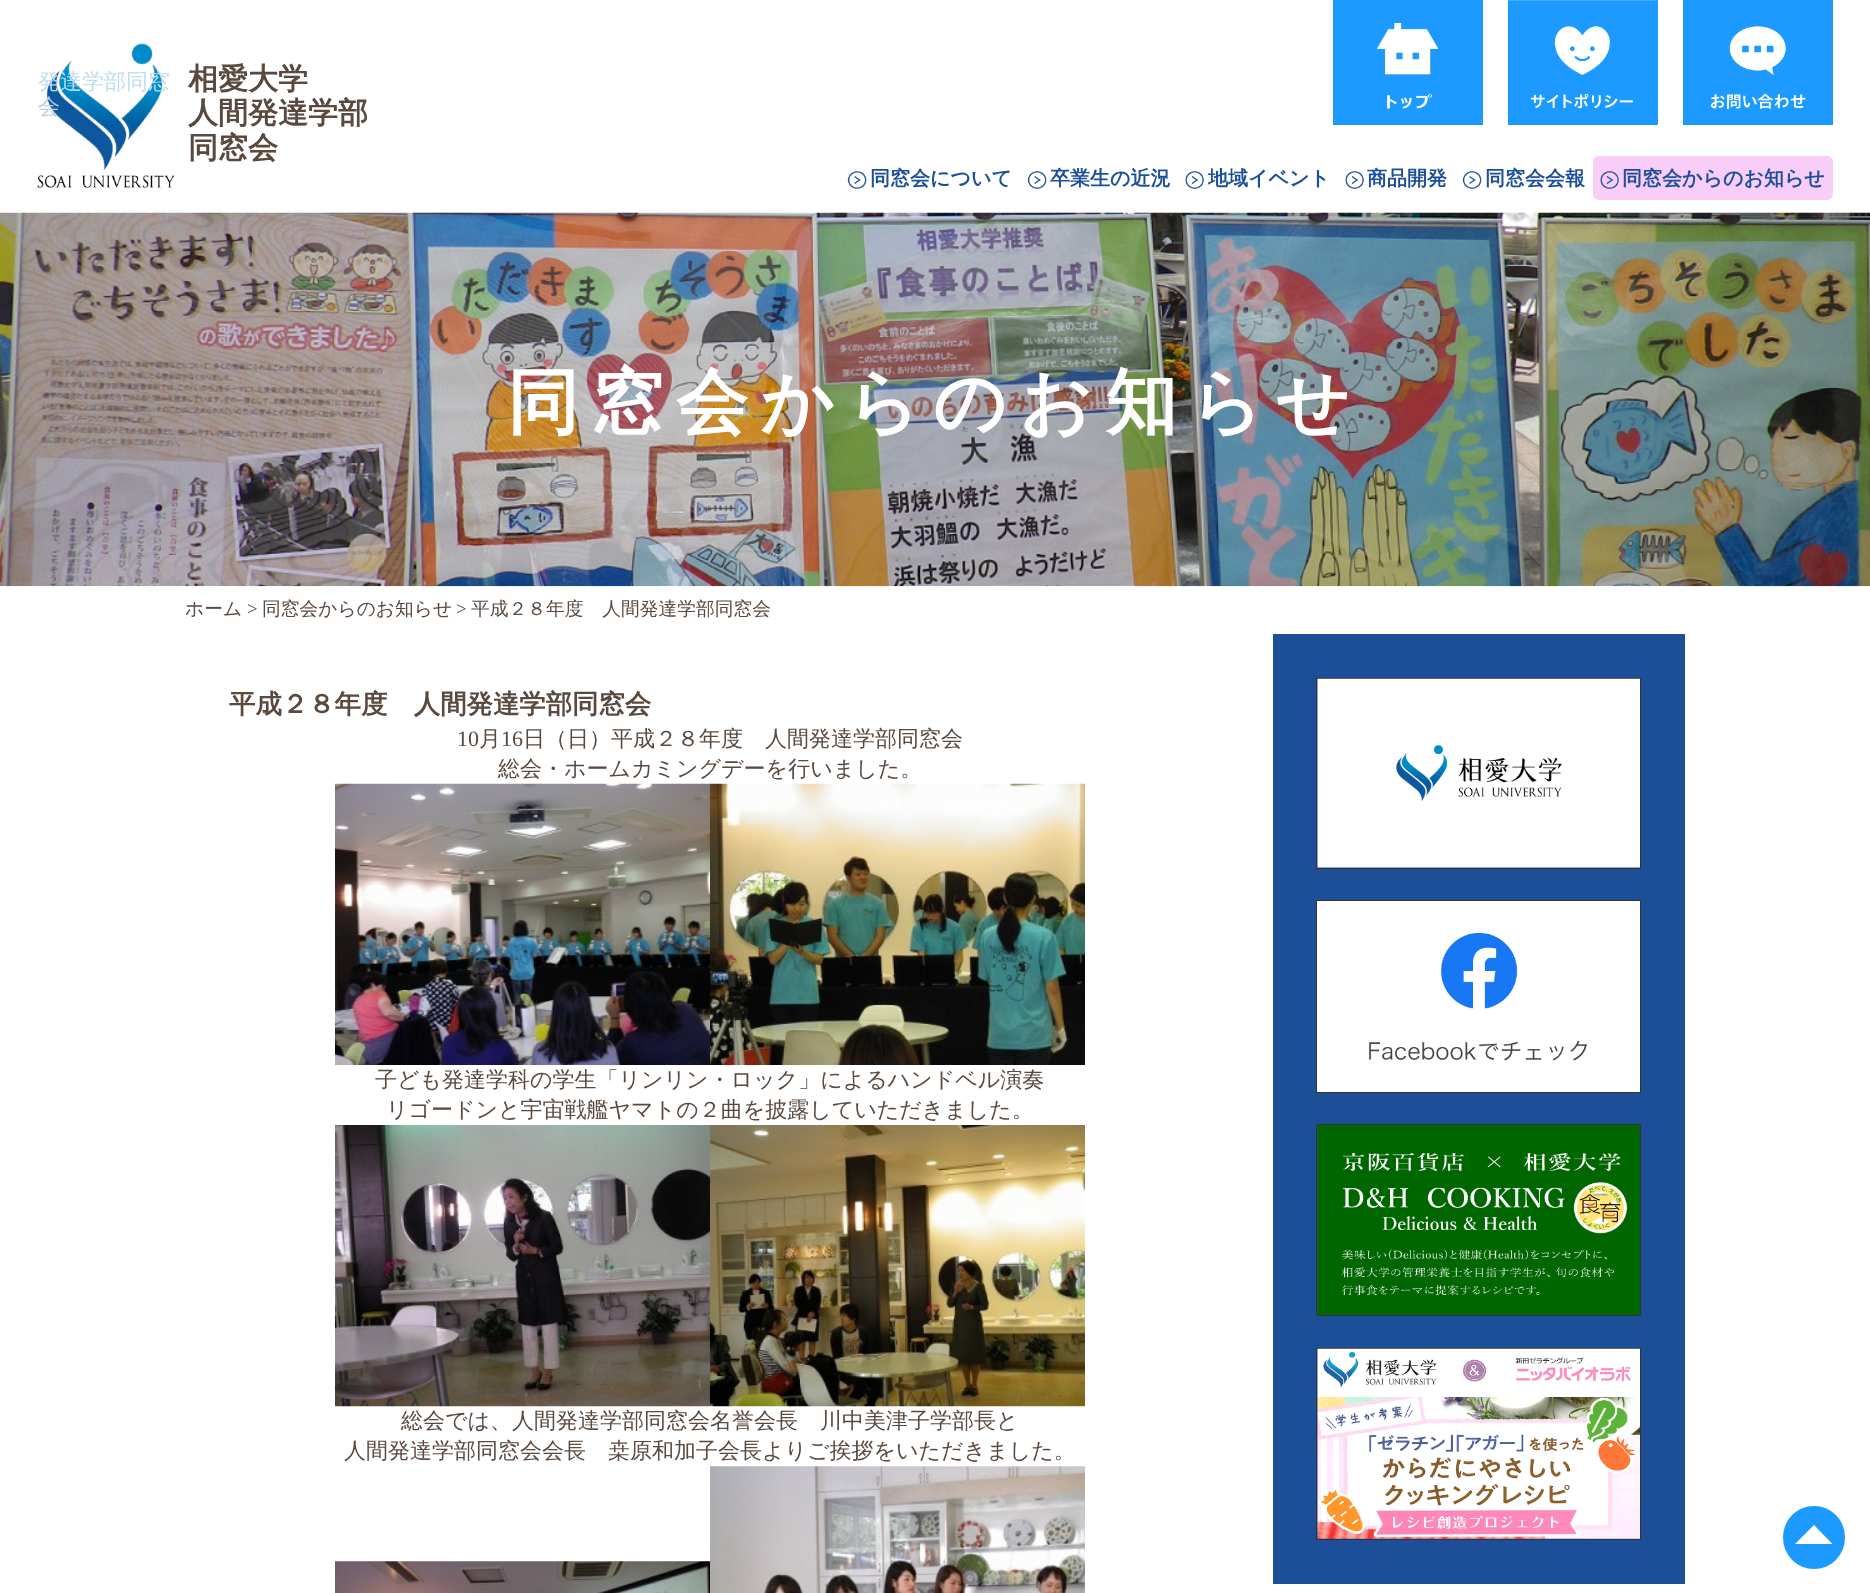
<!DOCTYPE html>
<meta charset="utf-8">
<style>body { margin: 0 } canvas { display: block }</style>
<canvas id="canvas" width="1870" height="1593"></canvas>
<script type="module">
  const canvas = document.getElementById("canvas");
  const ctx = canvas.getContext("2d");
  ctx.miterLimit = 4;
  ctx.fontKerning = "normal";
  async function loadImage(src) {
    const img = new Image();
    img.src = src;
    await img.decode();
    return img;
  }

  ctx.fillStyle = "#ffffff";
  ctx.fillRect(0, 0, 1870, 1593);
  ctx.drawImage(await loadImage("img1.png"), 37, 43, 138, 145);
  ctx.font = "500 22px WenQuanYi Zen Hei";
  ctx.fillStyle = "#bedeee";
  ctx.fillText("発達学部同窓", 38, 89);
  ctx.fillStyle = "#b8cee2";
  ctx.fillText("会", 38, 114);
  ctx.font = "bold 30px WenQuanYi Zen Hei";
  ctx.fillStyle = "#59493f";
  ctx.fillText("相愛大学", 188, 89);
  ctx.fillText("人間発達学部", 188, 123);
  ctx.fillText("同窓会", 188, 158);
  ctx.fillStyle = "#1c9aff";
  ctx.fillRect(1333, 0, 150, 125);
  ctx.drawImage(await loadImage("img2.png"), 1377, 23, 61, 86);
  ctx.fillRect(1508, 0, 150, 125);
  ctx.drawImage(await loadImage("img3.png"), 1508, 0, 149, 109);
  ctx.fillRect(1683, 0, 150, 125);
  ctx.drawImage(await loadImage("img4.png"), 1710, 26, 96, 83);
  ctx.drawImage(await loadImage("img5.png"), 847, 171, 20, 18);
  ctx.font = "bold 20px WenQuanYi Zen Hei";
  ctx.fillStyle = "#1c4f99";
  ctx.fillText("同窓会について", 870, 185);
  ctx.drawImage(await loadImage("img5.png"), 1027, 171, 20, 18);
  ctx.fillText("卒業生の近況", 1050, 185);
  ctx.drawImage(await loadImage("img6.png"), 1185, 171, 19, 18);
  ctx.fillText("地域イベント", 1208, 185);
  ctx.drawImage(await loadImage("img6.png"), 1345, 171, 19, 18);
  ctx.fillText("商品開発", 1367, 185);
  ctx.drawImage(await loadImage("img5.png"), 1462, 171, 20, 18);
  ctx.fillText("同窓会会報", 1485, 185);
  ctx.fillStyle = "#f8cdf8";
  ctx.beginPath();
  ctx.roundRect(1593, 156, 240, 44, 6);
  ctx.fill();
  ctx.drawImage(await loadImage("img7.png"), 1600, 171, 19, 18);
  ctx.fillStyle = "#1c4f99";
  ctx.fillText("同窓会からのお知らせ", 1622, 185);
  ctx.drawImage(await loadImage("img8.png"), 0, 212, 1870, 375);
  ctx.letterSpacing = "12.5px";
  ctx.font = "bold 72px WenQuanYi Zen Hei";
  ctx.fillStyle = "#ffffff";
  ctx.fillText("同窓会からのお知らせ", 507, 427);
  ctx.letterSpacing = "0px";
  ctx.font = "500 18.75px WenQuanYi Zen Hei";
  ctx.fillStyle = "#59493f";
  ctx.fillText("ホーム", 185, 615);
  ctx.font = "18.75px Liberation Serif";
  ctx.fillText(">", 247, 615);
  ctx.font = "500 18.75px WenQuanYi Zen Hei";
  ctx.fillText("同窓会からのお知らせ", 262, 615);
  ctx.font = "18.75px Liberation Serif";
  ctx.fillText(">", 456, 615);
  ctx.font = "500 18.75px WenQuanYi Zen Hei";
  ctx.fillText("平成２８年度　人間発達学部同窓会", 471, 615);
  ctx.font = "bold 26.4px WenQuanYi Zen Hei";
  ctx.fillText("平成２８年度　人間発達学部同窓会", 229, 713);
  ctx.font = "22px Liberation Serif";
  ctx.fillText("10", 457, 746);
  ctx.font = "500 22px WenQuanYi Zen Hei";
  ctx.fillText("月", 479, 746);
  ctx.font = "22px Liberation Serif";
  ctx.fillText("16", 501, 746);
  ctx.font = "500 22px WenQuanYi Zen Hei";
  ctx.fillText("日（日）平成２８年度　人間発達学部同窓会", 523, 746);
  ctx.fillText("総会・ホームカミングデーを行いました。", 498, 776);
  ctx.drawImage(await loadImage("img9.png"), 335, 783, 375, 282);
  ctx.drawImage(await loadImage("img10.png"), 710, 783, 375, 282);
  ctx.fillText("子ども発達学科の学生「リンリン・ロック」によるハンドベル演奏", 375, 1087);
  ctx.fillText("リゴードンと宇宙戦艦ヤマトの２曲を披露していただきました。", 386, 1117);
  ctx.drawImage(await loadImage("img11.png"), 335, 1125, 375, 282);
  ctx.drawImage(await loadImage("img12.png"), 710, 1125, 375, 282);
  ctx.fillText("総会では、人間発達学部同窓会名誉会長　川中美津子学部長と", 401, 1428);
  ctx.fillText("人間発達学部同窓会会長　桒原和加子会長よりご挨拶をいただきました。", 344, 1458);
  ctx.drawImage(await loadImage("img13.png"), 335, 1561, 375, 32);
  ctx.drawImage(await loadImage("img14.png"), 710, 1466, 375, 127);
  ctx.fillStyle = "#1c4f98";
  ctx.fillRect(1273, 634, 412, 950);
  ctx.strokeStyle = "#333333";
  ctx.strokeRect(1316.5, 678.5, 324, 190);
  ctx.drawImage(await loadImage("img15.png"), 1317, 678, 323, 190);
  ctx.fillStyle = "#ffffff";
  ctx.beginPath();
  ctx.rect(1316.5, 900.5, 324, 192);
  ctx.fill();
  ctx.stroke();
  ctx.drawImage(await loadImage("img16.png"), 1368, 933, 219, 128);
  ctx.strokeRect(1316.5, 1124.5, 324, 191);
  ctx.drawImage(await loadImage("img17.png"), 1317, 1125, 323, 190);
  ctx.strokeRect(1316.5, 1348.5, 324, 191);
  ctx.drawImage(await loadImage("img18.png"), 1317, 1348, 323, 191);
  ctx.fillStyle = "#1c9aff";
  ctx.beginPath();
  ctx.roundRect(1783, 1506, 62, 63, 31);
  ctx.fill();
  ctx.fillStyle = "#ffffff";
  ctx.beginPath();
  ctx.moveTo(1832.5, 1544);
  ctx.lineTo(1795, 1544);
  ctx.lineTo(1814, 1525);
  ctx.closePath();
  ctx.fill();
</script>
